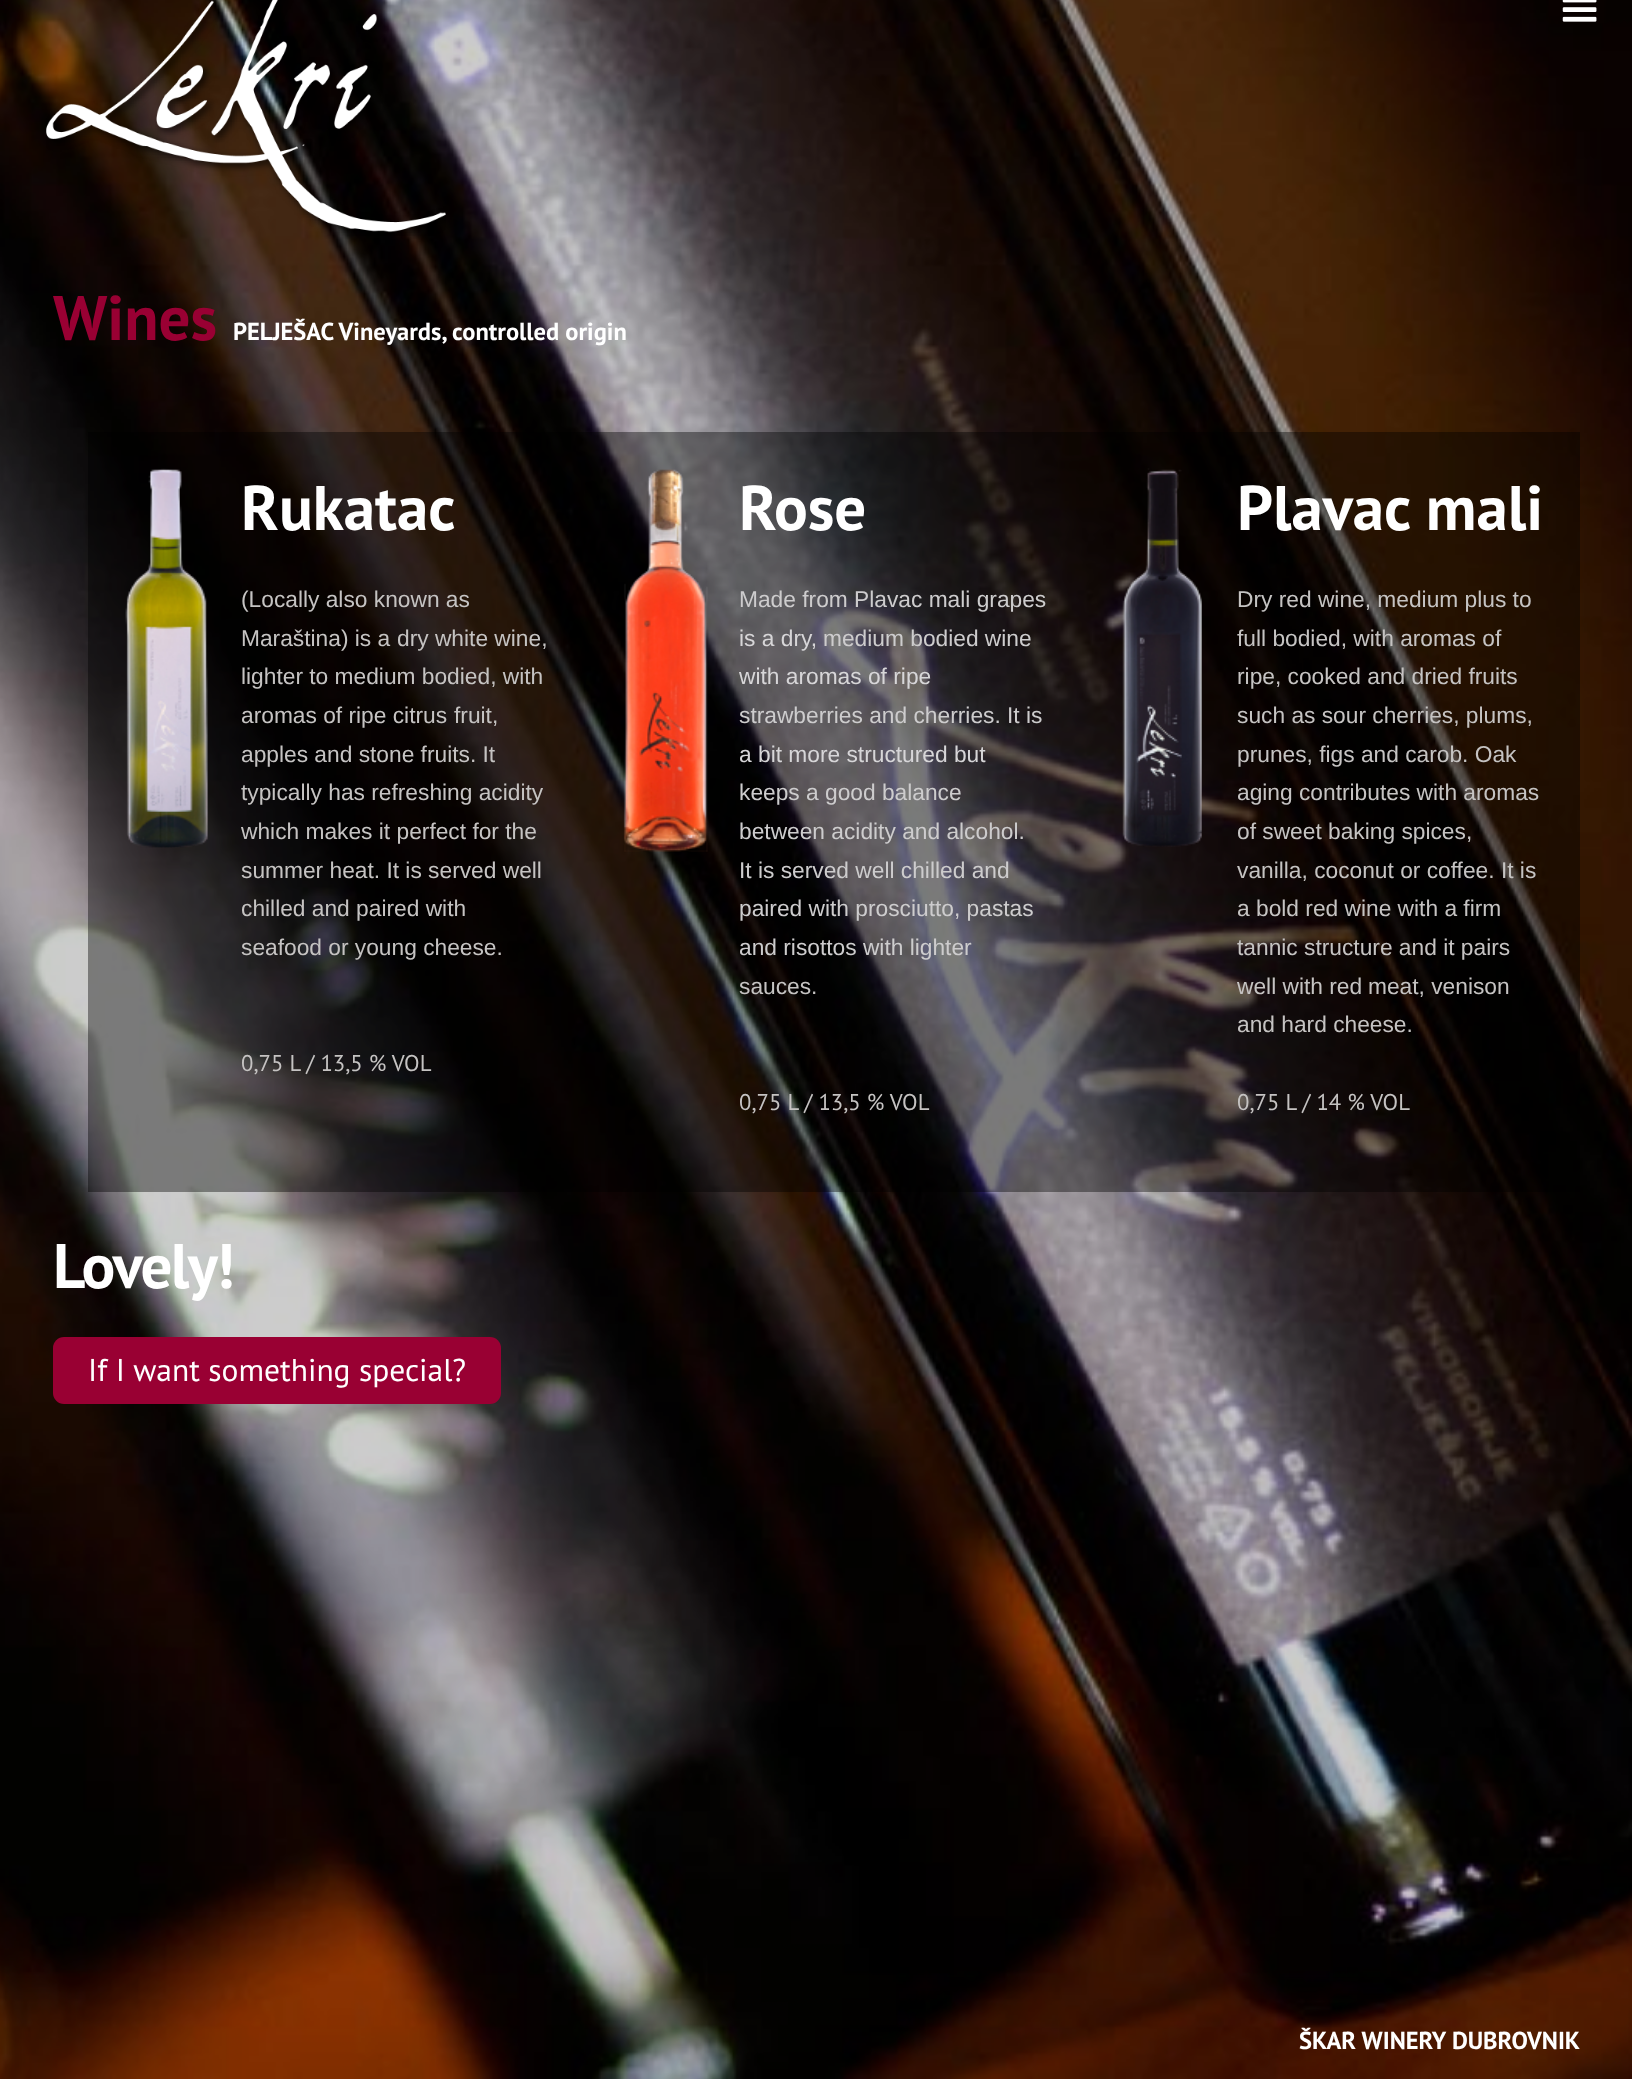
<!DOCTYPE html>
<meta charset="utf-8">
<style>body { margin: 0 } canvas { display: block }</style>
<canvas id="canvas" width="1632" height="2079"></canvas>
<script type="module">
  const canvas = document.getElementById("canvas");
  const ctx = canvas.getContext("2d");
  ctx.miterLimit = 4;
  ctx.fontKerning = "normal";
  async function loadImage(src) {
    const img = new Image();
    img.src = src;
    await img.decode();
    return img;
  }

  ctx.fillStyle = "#ffffff";
  ctx.fillRect(0, 0, 1632, 2079);
  ctx.drawImage(await loadImage("img3.png"), 0, 0, 1632, 2079);
  ctx.drawImage(await loadImage("img1.png"), 46, 0, 400, 236);
  ctx.drawImage(await loadImage("img2.png"), 1562, 0, 35, 22);
  ctx.font = "bold 63px PT Sans";
  ctx.fillStyle = "#990033";
  ctx.fillText("Wines", 53, 340);
  ctx.font = "bold 24.5px PT Sans";
  ctx.fillStyle = "#ffffff";
  ctx.fillText("PELJEŠAC Vineyards, controlled origin", 233, 340);
  ctx.fillStyle = "rgba(0, 0, 0, 0.4)";
  ctx.fillRect(88, 432, 497, 760);
  ctx.drawImage(await loadImage("img4.png"), 125, 468, 83, 380);
  ctx.font = "bold 63px PT Sans";
  ctx.fillStyle = "#ffffff";
  ctx.fillText("Rukatac", 241, 530);
  ctx.font = "22.75px Liberation Sans";
  ctx.fillStyle = "#c5c3c2";
  ctx.fillText("(Locally also known as", 241, 607);
  ctx.fillText("Maraština) is a", 241, 646);
  ctx.fillText("dry white wine,", 397, 646);
  ctx.fillText("lighter to medium bodied, with", 241, 684);
  ctx.fillText("aromas of ripe citrus", 241, 723);
  ctx.fillText("fruit,", 454, 723);
  ctx.fillText("apples and stone fruits. It", 241, 762);
  ctx.fillText("typically has refreshing acidity", 241, 800);
  ctx.fillText("which makes it perfect for the", 241, 839);
  ctx.fillText("summer heat. It is served well", 241, 878);
  ctx.fillText("chilled and paired with", 241, 916);
  ctx.fillText("seafood or young cheese.", 241, 955);
  ctx.font = "22.75px PT Sans";
  ctx.fillText("0,75 L / 13,5 % VOL", 241, 1071);
  ctx.fillStyle = "rgba(0, 0, 0, 0.4)";
  ctx.fillRect(585, 432, 498, 760);
  ctx.drawImage(await loadImage("img5.png"), 623, 469, 85, 383);
  ctx.font = "bold 63px PT Sans";
  ctx.fillStyle = "#ffffff";
  ctx.fillText("Rose", 739, 530);
  ctx.font = "22.75px Liberation Sans";
  ctx.fillStyle = "#cdcccd";
  ctx.fillText("Made from Plavac mali grapes", 739, 607);
  ctx.fillStyle = "#d7d6d8";
  ctx.fillText("is a dry,", 739, 646);
  ctx.fillStyle = "#cdcccd";
  ctx.fillText("medium bodied wine", 823, 646);
  ctx.fillStyle = "#d7d6d8";
  ctx.fillText("with aromas of ripe", 739, 684);
  ctx.fillStyle = "#cdcccd";
  ctx.fillText("strawberries and cherries. It is", 739, 723);
  ctx.fillStyle = "#d7d6d8";
  ctx.fillText("a bit more structured but", 739, 762);
  ctx.fillStyle = "#cdcccd";
  ctx.fillText("keeps a good balance", 739, 800);
  ctx.fillText("between acidity and alcohol.", 739, 839);
  ctx.fillText("It is served well chilled and", 739, 878);
  ctx.fillText("paired with prosciutto, pastas", 739, 916);
  ctx.fillText("and risottos with lighter", 739, 955);
  ctx.fillStyle = "#c5c3c2";
  ctx.fillText("sauces.", 739, 994);
  ctx.font = "22.75px PT Sans";
  ctx.fillText("0,75 L / 13,5 % VOL", 739, 1110);
  ctx.fillStyle = "rgba(0, 0, 0, 0.4)";
  ctx.fillRect(1083, 432, 497, 760);
  ctx.drawImage(await loadImage("img6.png"), 1122, 468, 80, 379);
  ctx.font = "bold 63px PT Sans";
  ctx.fillStyle = "#ffffff";
  ctx.fillText("Plavac mali", 1237, 530);
  ctx.font = "22.75px Liberation Sans";
  ctx.fillStyle = "#c5c3c2";
  ctx.fillText("Dry red wine, medium plus to", 1237, 607);
  ctx.fillText("full bodied, with aromas of", 1237, 646);
  ctx.fillText("ripe, cooked and dried fruits", 1237, 684);
  ctx.fillText("such as sour cherries, plums,", 1237, 723);
  ctx.fillText("prunes, figs and carob. Oak", 1237, 762);
  ctx.fillText("aging contributes with aromas", 1237, 800);
  ctx.fillText("of sweet baking spices,", 1237, 839);
  ctx.fillText("vanilla, coconut or coffee. It is", 1237, 878);
  ctx.fillText("a bold red wine with a firm", 1237, 916);
  ctx.fillText("tannic structure and it pairs", 1237, 955);
  ctx.fillText("well with red", 1237, 994);
  ctx.fillText("meat, venison", 1368, 994);
  ctx.fillText("and hard cheese.", 1237, 1032);
  ctx.font = "22.75px PT Sans";
  ctx.fillText("0,75 L / 14 % VOL", 1237, 1110);
  ctx.letterSpacing = "-1.75px";
  ctx.font = "bold 63px PT Sans";
  ctx.fillStyle = "#ffffff";
  ctx.fillText("Lovely!", 53, 1288);
  ctx.fillStyle = "#990033";
  ctx.beginPath();
  ctx.roundRect(53, 1337, 448, 67, 11);
  ctx.fill();
  ctx.letterSpacing = "0px";
  ctx.font = "31.5px PT Sans";
  ctx.fillStyle = "#ffffff";
  ctx.fillText("If I want something special?", 88, 1381);
  ctx.font = "bold 24.5px PT Sans";
  ctx.fillText("ŠKAR WINERY DUBROVNIK", 1299, 2049);
</script>
